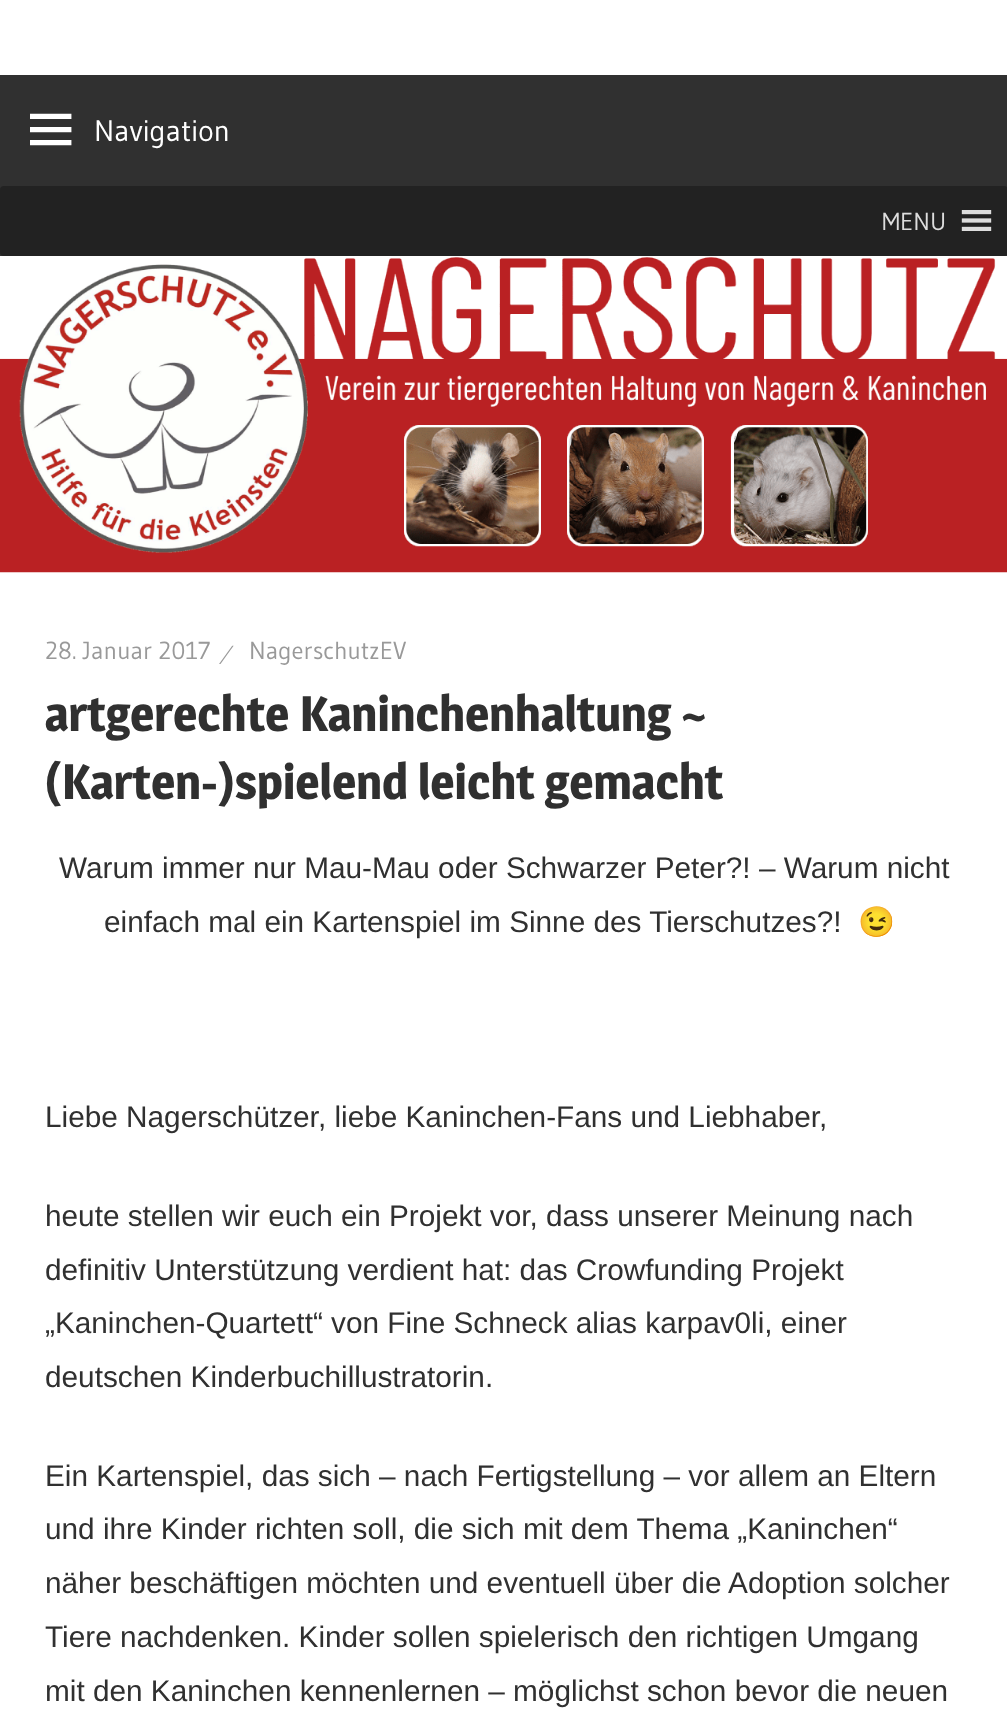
<!DOCTYPE html>
<meta charset="utf-8">
<style>body { margin: 0 } canvas { display: block }</style>
<canvas id="canvas" width="1007" height="1734"></canvas>
<script type="module">
  const canvas = document.getElementById("canvas");
  const ctx = canvas.getContext("2d");
  ctx.miterLimit = 4;
  ctx.fontKerning = "normal";
  async function loadImage(src) {
    const img = new Image();
    img.src = src;
    await img.decode();
    return img;
  }

  ctx.fillStyle = "#ffffff";
  ctx.fillRect(0, 0, 1007, 1734);
  ctx.fillStyle = "#303030";
  ctx.fillRect(0, 75, 1007, 181);
  ctx.drawImage(await loadImage("img1.png"), 30, 113, 42, 33);
  ctx.font = "29.75px Gudea";
  ctx.fillStyle = "#ffffff";
  ctx.fillText("Navigation", 94, 141);
  ctx.fillStyle = "#222222";
  ctx.beginPath();
  ctx.roundRect(0, 186, 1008, 70, 4);
  ctx.fill();
  ctx.font = "24.5px Gudea";
  ctx.fillStyle = "#dddddd";
  ctx.fillText("MENU", 882, 230);
  ctx.drawImage(await loadImage("img2.png"), 961, 210, 31, 21);
  ctx.drawImage(await loadImage("img3.png"), 0, 257, 1007, 316);
  ctx.fillStyle = "#999999";
  ctx.fillText("28. Januar 2017", 45, 659);
  ctx.font = "28px Liberation Serif";
  ctx.fillText("⁄", 224, 664);
  ctx.font = "24.5px Gudea";
  ctx.fillText("NagerschutzEV", 249, 659);
  ctx.font = "600 49px Magra";
  ctx.fillStyle = "#303030";
  ctx.fillText("artgerechte Kaninchenhaltung ~", 45, 731);
  ctx.fillText("(Karten-)spielend leicht gemacht", 45, 799);
  ctx.font = "29.75px Liberation Sans";
  ctx.fillText("Warum immer nur Mau-Mau oder Schwarzer Peter?! – Warum nicht", 59, 878);
  ctx.fillText("einfach mal ein Kartenspiel im Sinne des Tierschutzes?!", 104, 932);
  ctx.font = "29.75px Noto Color Emoji";
  ctx.fillText("😉", 858, 932);
  ctx.font = "29.75px Liberation Sans";
  ctx.fillText("Liebe Nagerschützer, liebe Kaninchen-Fans und Liebhaber,", 45, 1127);
  ctx.fillText("heute stellen wir euch ein Projekt vor, dass unserer Meinung nach", 45, 1226);
  ctx.fillText("definitiv Unterstützung verdient hat: das Crowfunding Projekt", 45, 1280);
  ctx.fillText("„Kaninchen-Quartett“ von Fine Schneck alias karpav0li, einer", 45, 1333);
  ctx.fillText("deutschen Kinderbuchillustratorin.", 45, 1387);
  ctx.fillText("Ein Kartenspiel, das sich – nach Fertigstellung – vor allem an Eltern", 45, 1486);
  ctx.fillText("und ihre Kinder richten soll, die sich mit dem Thema „Kaninchen“", 45, 1539);
  ctx.fillText("näher beschäftigen möchten und eventuell über die Adoption solcher", 45, 1593);
  ctx.fillText("Tiere nachdenken. Kinder sollen spielerisch den richtigen Umgang", 45, 1647);
  ctx.fillText("mit den Kaninchen kennenlernen – möglichst schon bevor die neuen", 45, 1701);
</script>
